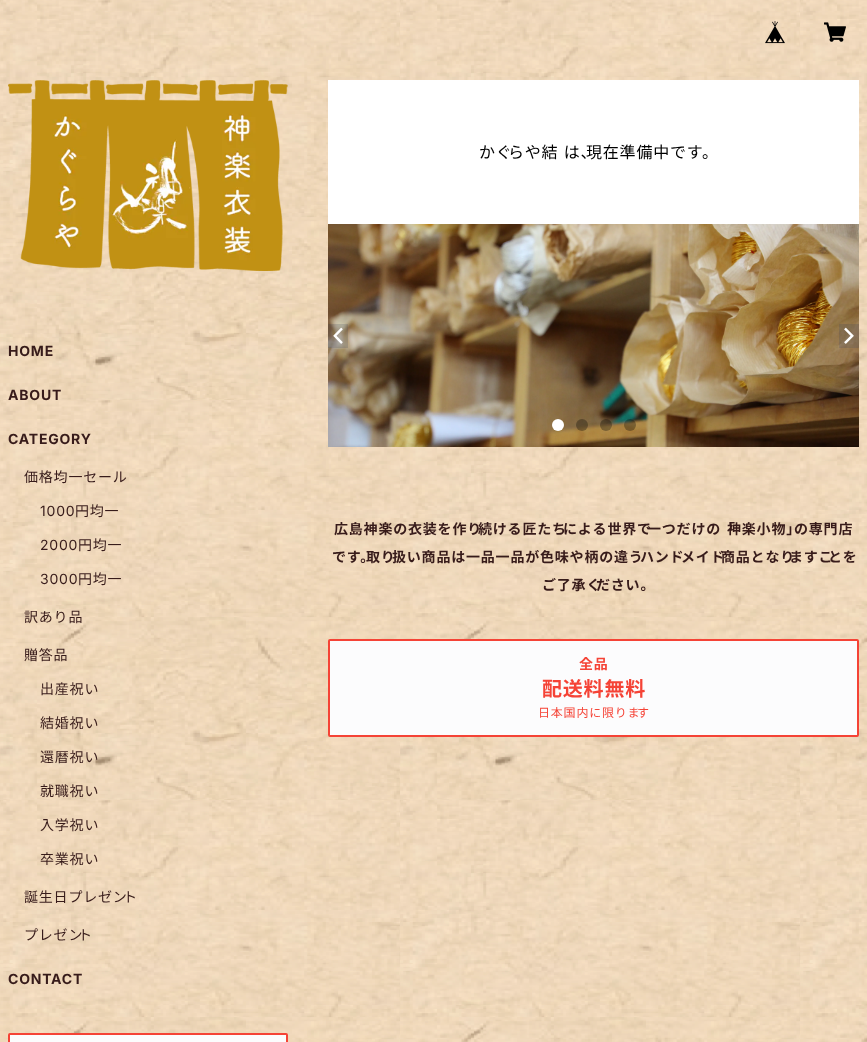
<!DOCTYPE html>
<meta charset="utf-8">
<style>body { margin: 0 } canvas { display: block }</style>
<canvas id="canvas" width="867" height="1042"></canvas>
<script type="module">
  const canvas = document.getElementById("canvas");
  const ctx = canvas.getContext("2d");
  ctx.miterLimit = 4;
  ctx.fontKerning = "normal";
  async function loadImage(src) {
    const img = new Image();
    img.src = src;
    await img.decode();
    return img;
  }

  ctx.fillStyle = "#ffffff";
  ctx.fillRect(0, 0, 867, 1042);
  ctx.drawImage(await loadImage("img1.png"), 0, 0, 867, 1042);
  ctx.drawImage(await loadImage("img2.png"), 765, 21, 20, 23);
  ctx.drawImage(await loadImage("img3.png"), 824, 22, 22, 20);
  ctx.drawImage(await loadImage("img4.png"), 8, 80, 280, 191);
  ctx.letterSpacing = "0.8px";
  ctx.font = "bold 14px Inter";
  ctx.fillStyle = "#371b1a";
  ctx.fillText("HOME", 8, 356);
  ctx.fillText("ABOUT", 8, 400);
  ctx.fillText("CATEGORY", 8, 444);
  ctx.font = "14px Noto Sans JP";
  ctx.fillText("価格均一セール", 24, 482);
  ctx.font = "14px Inter";
  ctx.fillText("1000", 40, 516);
  ctx.font = "14px Noto Sans JP";
  ctx.fillText("円均一", 75, 516);
  ctx.font = "14px Inter";
  ctx.fillText("2000", 40, 550);
  ctx.font = "14px Noto Sans JP";
  ctx.fillText("円均一", 78, 550);
  ctx.font = "14px Inter";
  ctx.fillText("3000", 40, 584);
  ctx.font = "14px Noto Sans JP";
  ctx.fillText("円均一", 78, 584);
  ctx.fillText("訳あり品", 24, 622);
  ctx.fillText("贈答品", 24, 660);
  ctx.fillText("出産祝い", 40, 694);
  ctx.fillText("結婚祝い", 40, 728);
  ctx.fillText("還暦祝い", 40, 762);
  ctx.fillText("就職祝い", 40, 796);
  ctx.fillText("入学祝い", 40, 830);
  ctx.fillText("卒業祝い", 40, 864);
  ctx.fillText("誕生日プレゼン", 24, 902);
  ctx.fillText("ト", 123, 902);
  ctx.fillText("プレゼン", 24, 940);
  ctx.fillText("ト", 78, 940);
  ctx.font = "bold 14px Inter";
  ctx.fillText("CONTACT", 8, 984);
  ctx.fillStyle = "#fcfcfd";
  ctx.beginPath();
  ctx.roundRect(9, 1034, 278, 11, 1);
  ctx.fill();
  ctx.strokeStyle = "#f54336";
  ctx.lineWidth = 2;
  ctx.stroke();
  ctx.fillStyle = "#ffffff";
  ctx.fillRect(328, 80, 531, 144);
  ctx.wordSpacing = "1px";
  ctx.font = "16px Noto Sans JP";
  ctx.fillStyle = "#000000";
  ctx.fillText("かぐ", 479, 158);
  ctx.fillText("らや結 は、", 508, 158);
  ctx.fillText("現在準備中です。", 586, 158);
  ctx.drawImage(await loadImage("img5.png"), 328, 224, 531, 223);
  ctx.fillStyle = "rgba(56, 67, 89, 0.2)";
  ctx.fillRect(328, 324, 20, 24);
  ctx.drawImage(await loadImage("img6.png"), 333, 327, 10, 17);
  ctx.fillRect(839, 324, 20, 24);
  ctx.drawImage(await loadImage("img7.png"), 844, 327, 10, 17);
  ctx.fillStyle = "#ffffff";
  ctx.beginPath();
  ctx.arc(558, 425, 6, 0, Math.PI * 2);
  ctx.fill();
  ctx.fillStyle = "rgba(0, 0, 0, 0.3)";
  ctx.beginPath();
  ctx.arc(582, 425, 6, 0, Math.PI * 2);
  ctx.fill();
  ctx.beginPath();
  ctx.arc(606, 425, 6, 0, Math.PI * 2);
  ctx.fill();
  ctx.beginPath();
  ctx.arc(630, 425, 6, 0, Math.PI * 2);
  ctx.fill();
  ctx.wordSpacing = "0px";
  ctx.font = "bold 14px Noto Sans JP";
  ctx.fillStyle = "#371b1a";
  ctx.fillText("広島神楽の衣装を作り", 334, 534);
  ctx.fillText("続ける匠たち", 478, 534);
  ctx.fillText("による世界で", 563, 534);
  ctx.fillText("一つだけの「", 647, 534);
  ctx.fillText("神楽小物」", 727, 534);
  ctx.fillText("の専門店", 794, 534);
  ctx.fillText("です。", 332, 562);
  ctx.fillText("取り", 366, 562);
  ctx.fillText("扱い商品は一品一品が色味や柄の違う", 392, 562);
  ctx.fillText("ハンド", 640, 562);
  ctx.fillText("メイド", 681, 562);
  ctx.fillText("商品となり", 721, 562);
  ctx.fillText("ますこ", 789, 562);
  ctx.fillText("とを", 828, 562);
  ctx.fillText("ご了承く", 542, 590);
  ctx.fillText("ださい。", 596, 590);
  ctx.fillStyle = "#fcfcfd";
  ctx.beginPath();
  ctx.roundRect(329, 640, 529, 96, 1);
  ctx.fill();
  ctx.stroke();
  ctx.fillStyle = "#f54336";
  ctx.fillText("全品", 579, 669);
  ctx.font = "bold 20px Noto Sans JP";
  ctx.fillText("配送料無料", 542, 696);
  ctx.font = "12px Noto Sans JP";
  ctx.fillText("日本国内に限りま", 538, 717);
  ctx.fillText("す", 637, 717);
</script>
